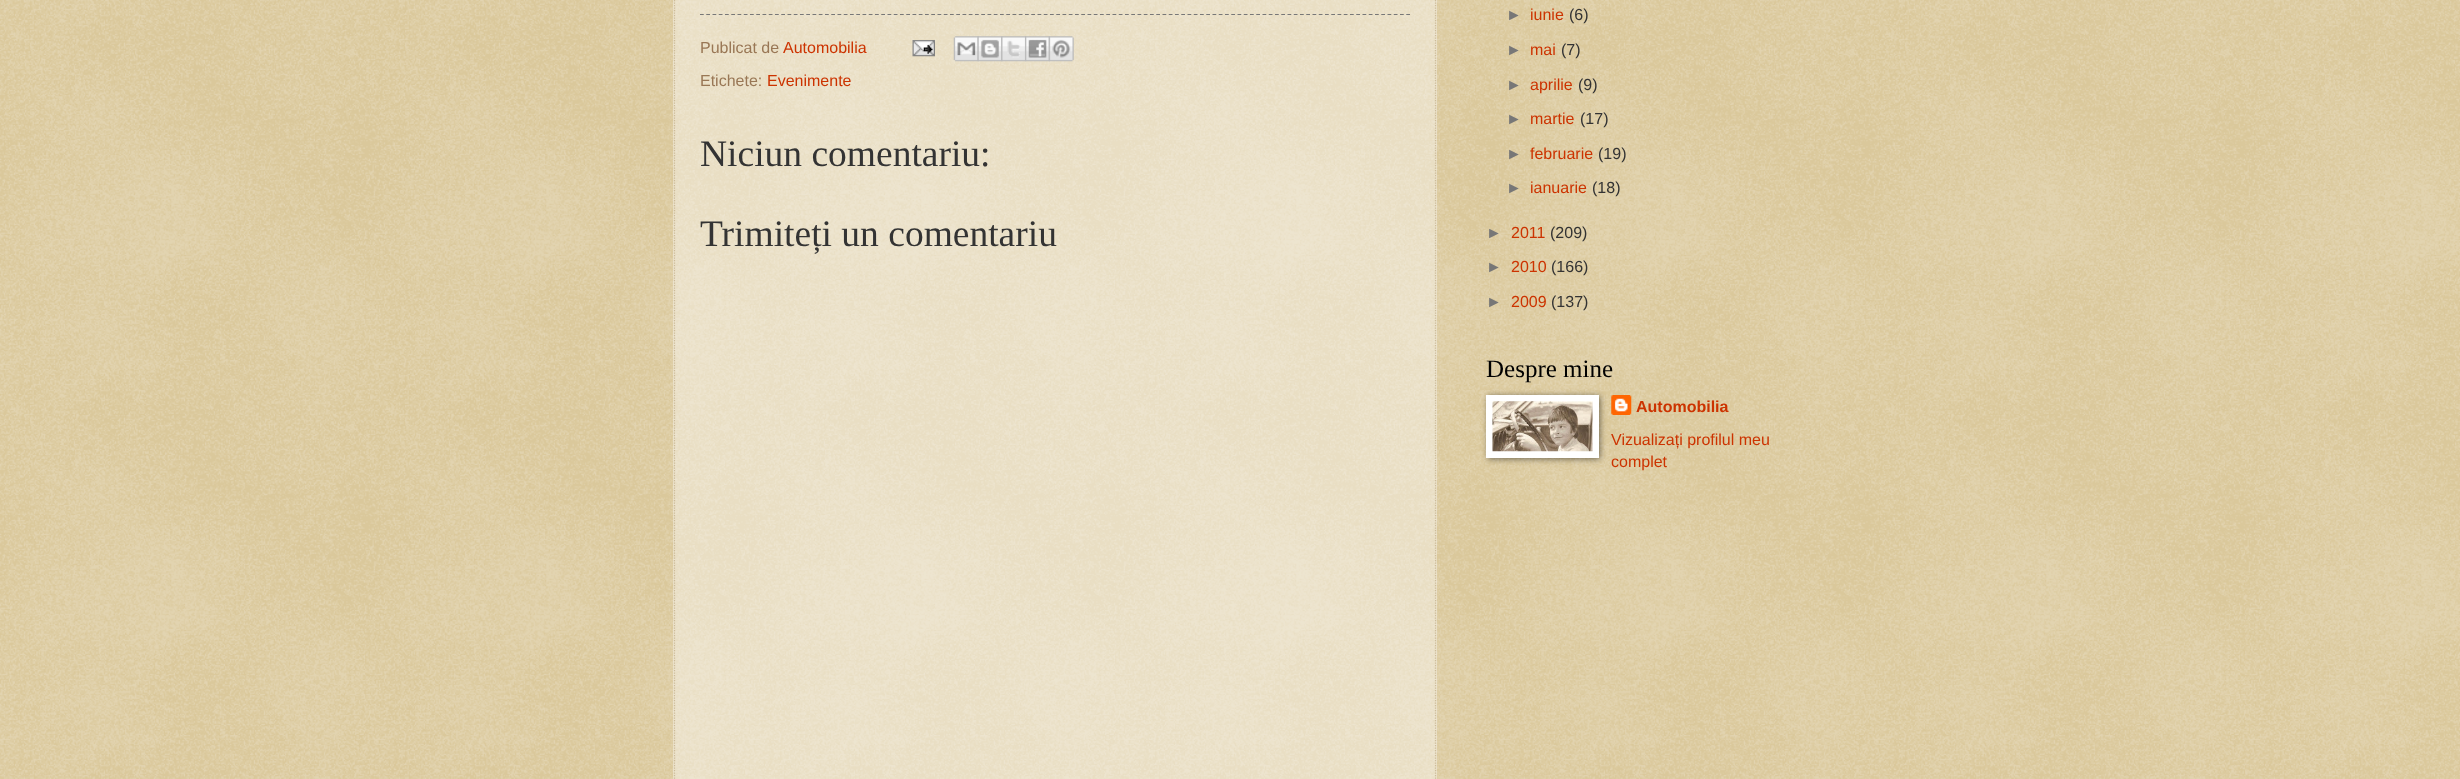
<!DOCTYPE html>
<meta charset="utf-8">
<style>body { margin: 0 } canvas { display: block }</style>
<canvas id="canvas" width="2460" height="779"></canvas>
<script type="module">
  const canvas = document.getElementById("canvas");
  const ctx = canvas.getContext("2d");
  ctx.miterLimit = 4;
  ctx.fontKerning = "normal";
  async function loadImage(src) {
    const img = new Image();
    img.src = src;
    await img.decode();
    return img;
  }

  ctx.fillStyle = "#c0a154";
  ctx.fillRect(0, 0, 2460, 779);
  ctx.drawImage(await loadImage("img1.png"), 0, 0, 2460, 779);
  ctx.fillStyle = "rgba(255, 255, 255, 0.4)";
  ctx.fillRect(673, 0, 764, 779);
  ctx.beginPath();
  ctx.moveTo(1435.5, -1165);
  ctx.lineTo(1435.5, 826);
  ctx.strokeStyle = "#ccbb99";
  ctx.lineWidth = 1.2;
  ctx.setLineDash([1.25, 1.25]);
  ctx.stroke();
  ctx.beginPath();
  ctx.moveTo(674.5, -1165);
  ctx.lineTo(674.5, 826);
  ctx.stroke();
  ctx.beginPath();
  ctx.moveTo(700, 14.5);
  ctx.lineTo(1410, 14.5);
  ctx.strokeStyle = "#777777";
  ctx.setLineDash([3.75, 2.5]);
  ctx.stroke();
  ctx.font = "16px Liberation Sans";
  ctx.fillStyle = "#997755";
  ctx.fillText("Publicat de", 700, 53);
  ctx.fillStyle = "#cc3300";
  ctx.fillText("Automobilia", 783, 53);
  ctx.drawImage(await loadImage("img2.png"), 912, 40, 23, 17);
  ctx.drawImage(await loadImage("img3.png"), 953, 36, 26, 26);
  ctx.drawImage(await loadImage("img4.png"), 977, 36, 26, 26);
  ctx.drawImage(await loadImage("img5.png"), 1001, 36, 26, 26);
  ctx.drawImage(await loadImage("img6.png"), 1025, 36, 25, 26);
  ctx.drawImage(await loadImage("img7.png"), 1048, 36, 26, 26);
  ctx.fillStyle = "#997755";
  ctx.fillText("Etichete:", 700, 86);
  ctx.fillStyle = "#cc3300";
  ctx.fillText("Evenimente", 767, 86);
  ctx.font = "37.5px Liberation Serif";
  ctx.fillStyle = "#333333";
  ctx.fillText("Niciun comentariu:", 700, 166);
  ctx.fillText("Trimiteți un comentariu", 700, 246);
  ctx.font = "16px Liberation Sans";
  ctx.fillStyle = "#777777";
  ctx.fillText("►", 1506, 20);
  ctx.fillStyle = "#cc3300";
  ctx.fillText("iunie", 1530, 20);
  ctx.fillStyle = "#333333";
  ctx.fillText("(6)", 1569, 20);
  ctx.fillStyle = "#777777";
  ctx.fillText("►", 1506, 55);
  ctx.fillStyle = "#cc3300";
  ctx.fillText("mai", 1530, 55);
  ctx.fillStyle = "#333333";
  ctx.fillText("(7)", 1561, 55);
  ctx.fillStyle = "#777777";
  ctx.fillText("►", 1506, 90);
  ctx.fillStyle = "#cc3300";
  ctx.fillText("aprilie", 1530, 90);
  ctx.fillStyle = "#333333";
  ctx.fillText("(9)", 1578, 90);
  ctx.fillStyle = "#777777";
  ctx.fillText("►", 1506, 124);
  ctx.fillStyle = "#cc3300";
  ctx.fillText("martie", 1530, 124);
  ctx.fillStyle = "#333333";
  ctx.fillText("(17)", 1580, 124);
  ctx.fillStyle = "#777777";
  ctx.fillText("►", 1506, 159);
  ctx.fillStyle = "#cc3300";
  ctx.fillText("februarie", 1530, 159);
  ctx.fillStyle = "#333333";
  ctx.fillText("(19)", 1598, 159);
  ctx.fillStyle = "#777777";
  ctx.fillText("►", 1506, 193);
  ctx.fillStyle = "#cc3300";
  ctx.fillText("ianuarie", 1530, 193);
  ctx.fillStyle = "#333333";
  ctx.fillText("(18)", 1592, 193);
  ctx.fillStyle = "#777777";
  ctx.fillText("►", 1486, 238);
  ctx.fillStyle = "#cc3300";
  ctx.fillText("2011", 1511, 238);
  ctx.fillStyle = "#333333";
  ctx.fillText("(209)", 1550, 238);
  ctx.fillStyle = "#777777";
  ctx.fillText("►", 1486, 272);
  ctx.fillStyle = "#cc3300";
  ctx.fillText("2010", 1511, 272);
  ctx.fillStyle = "#333333";
  ctx.fillText("(166)", 1551, 272);
  ctx.fillStyle = "#777777";
  ctx.fillText("►", 1486, 307);
  ctx.fillStyle = "#cc3300";
  ctx.fillText("2009", 1511, 307);
  ctx.fillStyle = "#333333";
  ctx.fillText("(137)", 1551, 307);
  ctx.font = "25px Liberation Serif";
  ctx.fillStyle = "#000000";
  ctx.fillText("Despre mine", 1486, 377);
  ctx.fillStyle = "rgba(0, 0, 0, 0.5)";
  ctx.filter = "blur(3px)";
  ctx.beginPath();
  ctx.rect(1488, 396, 112, 63);
  ctx.fill();
  ctx.filter = "none";
  ctx.fillStyle = "#ffffff";
  ctx.fillRect(1486, 395, 113, 63);
  ctx.drawImage(await loadImage("img8.png"), 1492, 401, 101, 51);
  ctx.drawImage(await loadImage("img9.png"), 1611, 395, 21, 20);
  ctx.font = "bold 16px Liberation Sans";
  ctx.fillStyle = "#cc3300";
  ctx.fillText("Automobilia", 1636, 412);
  ctx.font = "16px Liberation Sans";
  ctx.fillText("Vizualizați profilul meu", 1611, 445);
  ctx.fillText("complet", 1611, 467);
</script>
